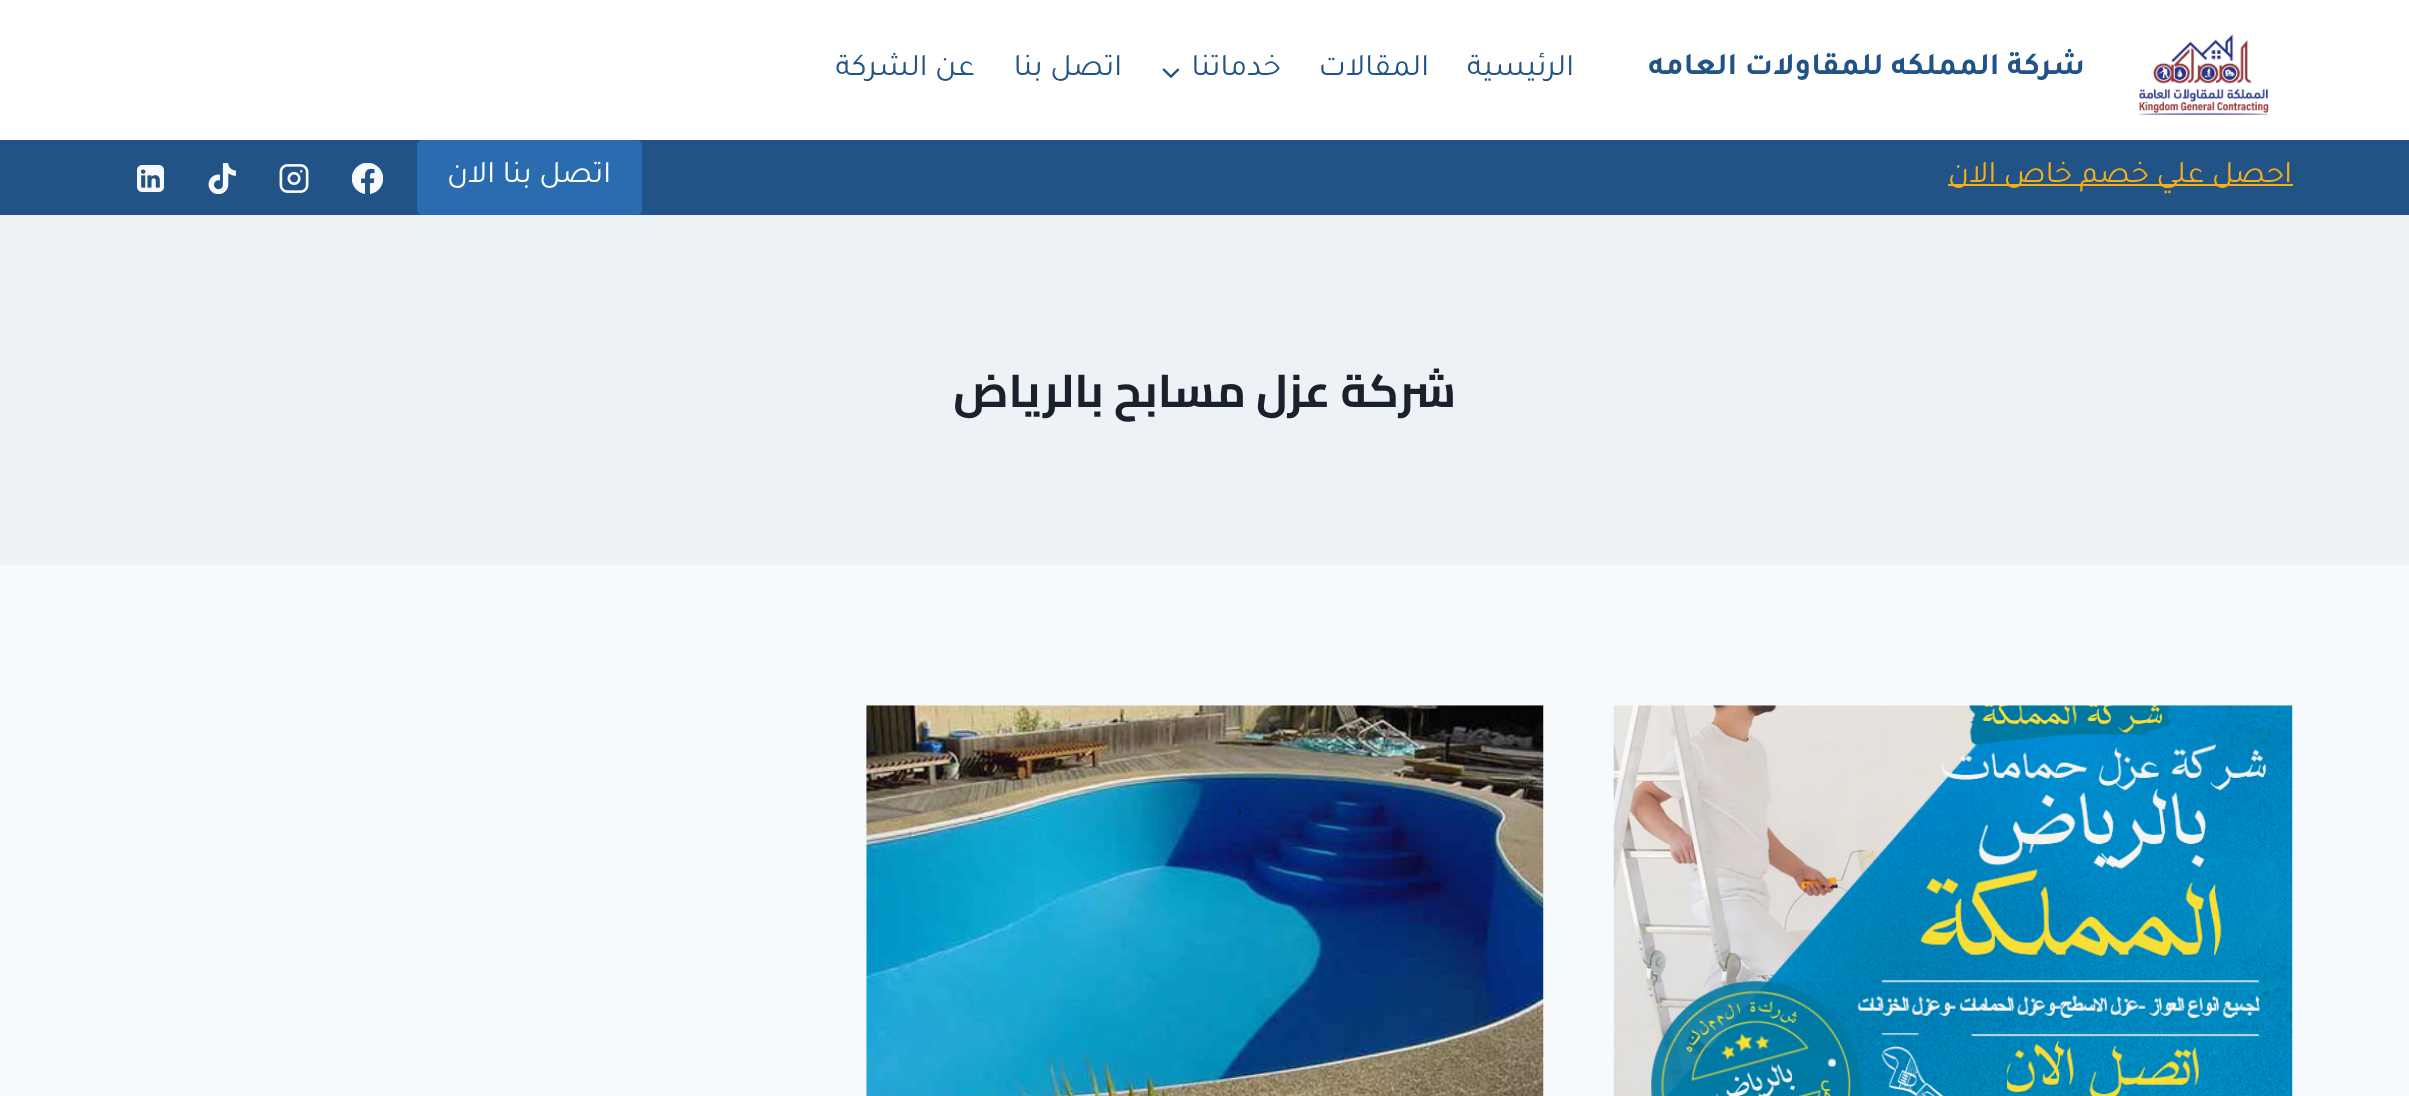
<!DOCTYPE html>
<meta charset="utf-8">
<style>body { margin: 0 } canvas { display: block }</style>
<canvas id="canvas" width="2409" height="1096"></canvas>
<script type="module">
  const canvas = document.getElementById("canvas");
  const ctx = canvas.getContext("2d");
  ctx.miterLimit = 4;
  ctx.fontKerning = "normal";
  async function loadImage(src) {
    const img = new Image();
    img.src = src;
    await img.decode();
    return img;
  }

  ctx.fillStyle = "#f7fafc";
  ctx.fillRect(0, 0, 2409, 1096);
  ctx.fillStyle = "#ffffff";
  ctx.fillRect(0, 0, 2409, 140);
  ctx.drawImage(await loadImage("img1.png"), 2139, 34, 130, 82);
  ctx.direction = "rtl";
  ctx.font = "bold 31.5px Tajawal";
  ctx.fillStyle = "#215387";
  ctx.fillText("شركة المملكه للمقاولات العامه", 2085, 74);
  ctx.font = "31.5px Tajawal";
  ctx.fillText("الرئيسية", 1574, 75);
  ctx.fillText("المقالات", 1429, 75);
  ctx.fillText("خدماتنا", 1281, 75);
  ctx.drawImage(await loadImage("img2.png"), 1162, 68, 18, 10);
  ctx.fillText("اتصل بنا", 1122, 75);
  ctx.fillText("عن الشركة", 975, 75);
  ctx.fillRect(0, 140, 2409, 75);
  ctx.fillStyle = "#f9ae14";
  ctx.fillRect(1948, 184, 345, 2);
  ctx.fillText("احصل علي خصم خاص الان", 2292, 182);
  ctx.fillStyle = "#2b6cb0";
  ctx.beginPath();
  ctx.roundRect(417, 140, 225, 75, 5);
  ctx.fill();
  ctx.fillStyle = "#ffffff";
  ctx.fillText("اتصل بنا الان", 611, 182);
  ctx.drawImage(await loadImage("img3.png"), 352, 163, 31, 31);
  ctx.drawImage(await loadImage("img4.png"), 279, 164, 30, 29);
  ctx.drawImage(await loadImage("img5.png"), 208, 163, 28, 31);
  ctx.drawImage(await loadImage("img6.png"), 137, 165, 27, 27);
  ctx.fillStyle = "#edf2f7";
  ctx.fillRect(0, 215, 2409, 350);
  ctx.font = "bold 45.5px Cairo";
  ctx.fillStyle = "#1a202c";
  ctx.fillText("شركة عزل مسابح بالرياض", 1456, 407);
  ctx.fillStyle = "#ffffff";
  ctx.beginPath();
  ctx.roundRect(1614, 705, 679, 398, 7);
  ctx.fill();
  ctx.drawImage(await loadImage("img7.png"), 1613, 705, 680, 391);
  ctx.beginPath();
  ctx.roundRect(866, 705, 678, 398, 7);
  ctx.fill();
  ctx.drawImage(await loadImage("img8.png"), 866, 705, 678, 391);
</script>
